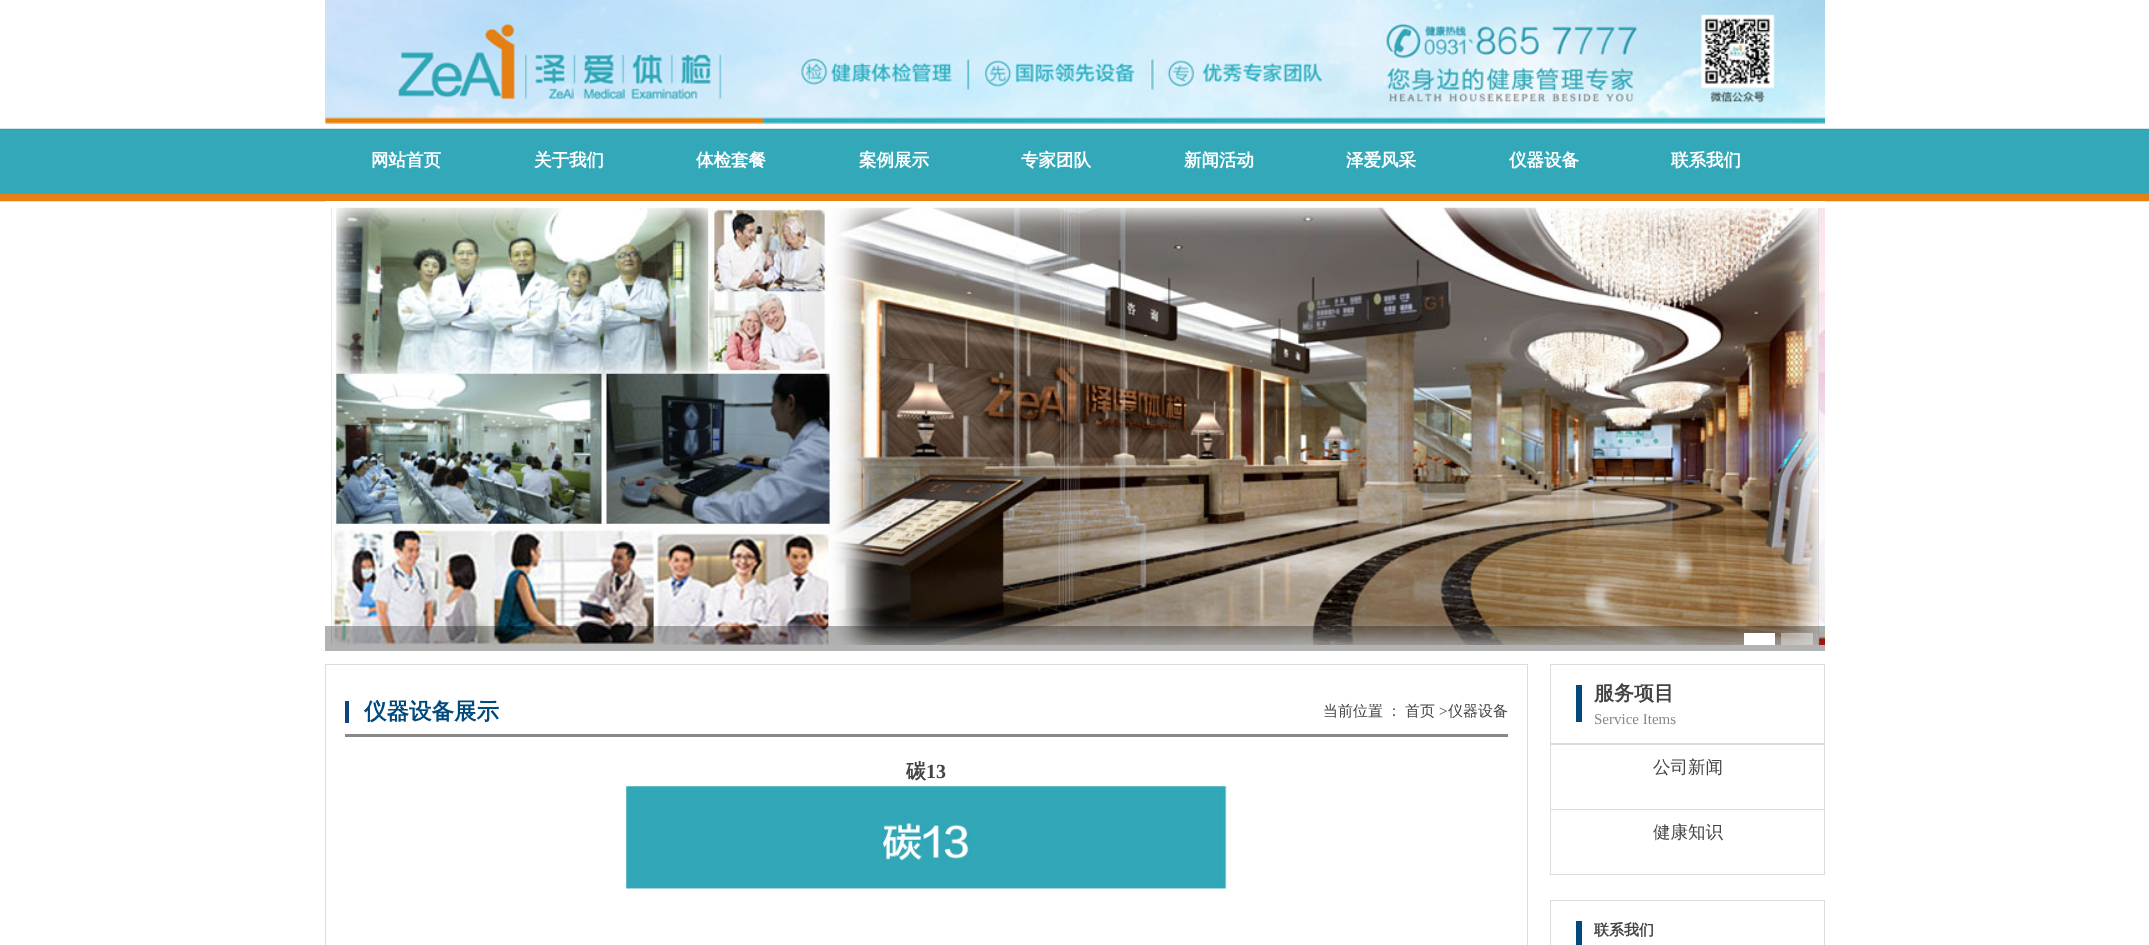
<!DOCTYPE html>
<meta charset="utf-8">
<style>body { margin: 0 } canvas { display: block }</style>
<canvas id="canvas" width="2149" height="945"></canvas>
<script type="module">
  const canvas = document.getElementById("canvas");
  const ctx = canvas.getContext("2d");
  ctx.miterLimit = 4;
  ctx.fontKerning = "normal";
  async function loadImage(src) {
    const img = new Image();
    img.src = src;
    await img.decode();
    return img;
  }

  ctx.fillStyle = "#ffffff";
  ctx.fillRect(0, 0, 2149, 945);
  ctx.drawImage(await loadImage("img1.png"), 325, 0, 1500, 124);
  ctx.drawImage(await loadImage("img2.png"), 0, 128, 2149, 74);
  ctx.font = "bold 17.5px WenQuanYi Zen Hei";
  ctx.fillText("网站首页", 371, 166);
  ctx.fillText("关于我们", 534, 166);
  ctx.fillText("体检套餐", 696, 166);
  ctx.fillText("案例展示", 859, 166);
  ctx.fillText("专家团队", 1021, 166);
  ctx.fillText("新闻活动", 1184, 166);
  ctx.fillText("泽爱风采", 1346, 166);
  ctx.fillText("仪器设备", 1509, 166);
  ctx.fillText("联系我们", 1671, 166);
  ctx.fillRect(325, 201, 1500, 1);
  ctx.fillStyle = "#cccccc";
  ctx.fillRect(331, 208, 1488, 437);
  ctx.drawImage(await loadImage("img3.png"), 331, 207, 1488, 438);
  ctx.drawImage(await loadImage("img4.png"), 1818, 207, 7, 438);
  ctx.fillStyle = "rgba(0, 0, 0, 0.3)";
  ctx.fillRect(325, 626, 1500, 25);
  ctx.fillStyle = "#ffffff";
  ctx.fillRect(1744, 633, 31, 12);
  ctx.fillStyle = "rgba(255, 255, 255, 0.4)";
  ctx.fillRect(1781, 633, 32, 12);
  ctx.strokeStyle = "#dcdcdc";
  ctx.strokeRect(325.5, 664.5, 1202, 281);
  ctx.fillStyle = "#888888";
  ctx.fillRect(345, 734, 1163, 3);
  ctx.fillStyle = "#0f437f";
  ctx.fillRect(345, 701, 4, 22);
  ctx.font = "bold 22.5px WenQuanYi Zen Hei";
  ctx.fillStyle = "#004a7e";
  ctx.fillText("仪器设备展示", 364, 719);
  ctx.wordSpacing = "-1px";
  ctx.font = "500 15px WenQuanYi Zen Hei";
  ctx.fillStyle = "#444444";
  ctx.fillText("当前位置 ：", 1323, 716);
  ctx.wordSpacing = "0px";
  ctx.fillText("首页", 1405, 716);
  ctx.font = "15px Liberation Serif";
  ctx.fillText(">", 1439, 716);
  ctx.font = "500 15px WenQuanYi Zen Hei";
  ctx.fillText("仪器设备", 1448, 716);
  ctx.font = "bold 20px WenQuanYi Zen Hei";
  ctx.fillText("碳", 906, 778);
  ctx.font = "bold 20px Liberation Serif";
  ctx.fillText("13", 926, 778);
  ctx.drawImage(await loadImage("img5.png"), 626, 786, 601, 103);
  ctx.strokeRect(1550.5, 664.5, 274, 210);
  ctx.fillStyle = "#004a7e";
  ctx.fillRect(1576, 685, 6, 37);
  ctx.font = "bold 20px WenQuanYi Zen Hei";
  ctx.fillStyle = "#444444";
  ctx.fillText("服务项目", 1594, 700);
  ctx.font = "15px Liberation Serif";
  ctx.fillStyle = "#888888";
  ctx.fillText("Service Items", 1594, 724);
  ctx.fillStyle = "#dcdcdc";
  ctx.fillRect(1551, 743, 273, 2);
  ctx.font = "500 17.5px WenQuanYi Zen Hei";
  ctx.fillStyle = "#444444";
  ctx.fillText("公司新闻", 1653, 773);
  ctx.fillStyle = "#dcdcdc";
  ctx.fillRect(1551, 809, 273, 1);
  ctx.fillStyle = "#444444";
  ctx.fillText("健康知识", 1653, 838);
  ctx.strokeRect(1550.5, 900.5, 274, 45);
  ctx.fillStyle = "#004a7e";
  ctx.fillRect(1576, 921, 6, 24);
  ctx.font = "bold 15px WenQuanYi Zen Hei";
  ctx.fillStyle = "#444444";
  ctx.fillText("联系我们", 1594, 935);
</script>
